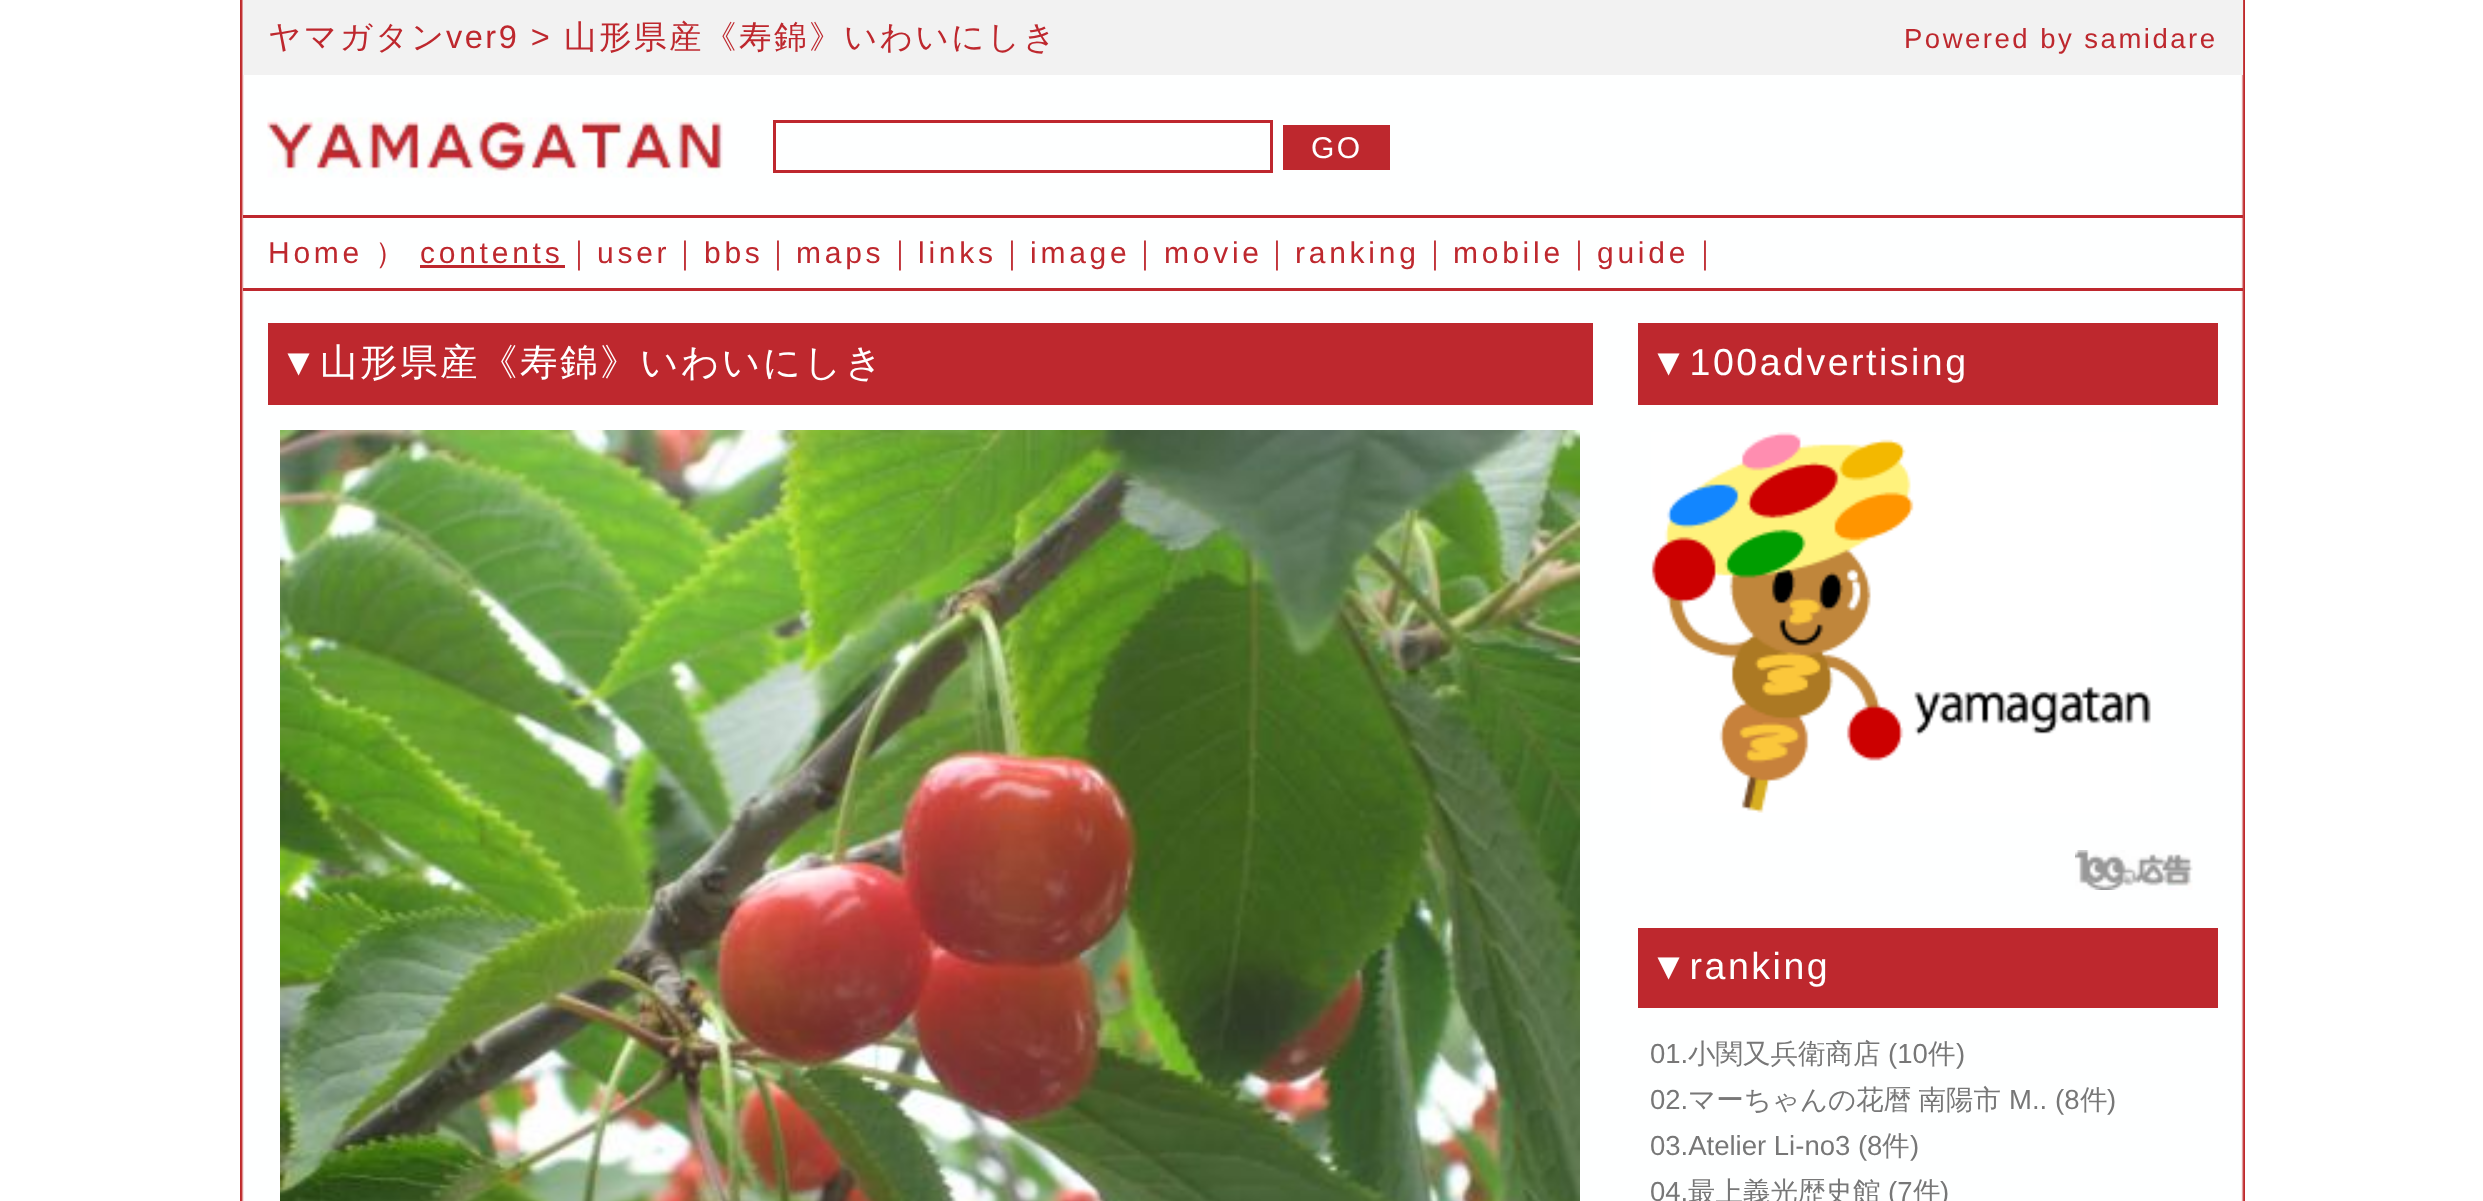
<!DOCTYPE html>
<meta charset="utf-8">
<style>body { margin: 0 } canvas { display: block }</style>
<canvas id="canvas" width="2483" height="1201"></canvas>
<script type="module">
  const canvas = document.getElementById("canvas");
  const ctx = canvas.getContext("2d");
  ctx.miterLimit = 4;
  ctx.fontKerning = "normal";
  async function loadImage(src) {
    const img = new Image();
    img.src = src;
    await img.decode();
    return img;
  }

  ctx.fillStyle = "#ffffff";
  ctx.fillRect(0, 0, 2483, 1201);
  ctx.drawImage(await loadImage("img1.png"), 240, 0, 2005, 1201);
  ctx.fillStyle = "#f2f2f2";
  ctx.fillRect(243, 0, 2000, 75);
  ctx.letterSpacing = "2.5px";
  ctx.font = "500 32.5px WenQuanYi Zen Hei";
  ctx.fillStyle = "#be282e";
  ctx.fillText("ヤマガタン", 268, 48);
  ctx.font = "32.5px Liberation Sans";
  ctx.fillText("ver9 >", 446, 48);
  ctx.font = "500 32.5px WenQuanYi Zen Hei";
  ctx.fillText("山形県産《寿錦》いわいにしき", 564, 48);
  ctx.font = "27.5px Liberation Sans";
  ctx.fillText("Powered by samidare", 1904, 48);
  ctx.drawImage(await loadImage("img2.png"), 267, 117, 456, 61);
  ctx.strokeStyle = "#be282e";
  ctx.lineWidth = 3;
  ctx.strokeRect(774.5, 121.5, 497, 50);
  ctx.fillRect(1283, 125, 107, 45);
  ctx.font = "30px Liberation Sans";
  ctx.fillStyle = "#ffffff";
  ctx.fillText("GO", 1311, 158);
  ctx.fillStyle = "#be282e";
  ctx.fillRect(243, 215, 2000, 3);
  ctx.fillRect(243, 288, 2000, 3);
  ctx.letterSpacing = "3.75px";
  ctx.fillText("Home", 268, 263);
  ctx.font = "500 30px WenQuanYi Zen Hei";
  ctx.fillText("）", 375, 263);
  ctx.font = "30px Liberation Sans";
  ctx.fillText("contents", 420, 263);
  ctx.fillRect(420, 265, 145, 3);
  ctx.font = "500 30px WenQuanYi Zen Hei";
  ctx.fillText("｜", 564, 263);
  ctx.font = "30px Liberation Sans";
  ctx.fillText("user", 597, 263);
  ctx.font = "500 30px WenQuanYi Zen Hei";
  ctx.fillText("｜", 670, 263);
  ctx.font = "30px Liberation Sans";
  ctx.fillText("bbs", 704, 263);
  ctx.font = "500 30px WenQuanYi Zen Hei";
  ctx.fillText("｜", 763, 263);
  ctx.font = "30px Liberation Sans";
  ctx.fillText("maps", 796, 263);
  ctx.font = "500 30px WenQuanYi Zen Hei";
  ctx.fillText("｜", 885, 263);
  ctx.font = "30px Liberation Sans";
  ctx.fillText("links", 918, 263);
  ctx.font = "500 30px WenQuanYi Zen Hei";
  ctx.fillText("｜", 997, 263);
  ctx.font = "30px Liberation Sans";
  ctx.fillText("image", 1030, 263);
  ctx.font = "500 30px WenQuanYi Zen Hei";
  ctx.fillText("｜", 1130, 263);
  ctx.font = "30px Liberation Sans";
  ctx.fillText("movie", 1164, 263);
  ctx.font = "500 30px WenQuanYi Zen Hei";
  ctx.fillText("｜", 1262, 263);
  ctx.font = "30px Liberation Sans";
  ctx.fillText("ranking", 1295, 263);
  ctx.font = "500 30px WenQuanYi Zen Hei";
  ctx.fillText("｜", 1420, 263);
  ctx.font = "30px Liberation Sans";
  ctx.fillText("mobile", 1453, 263);
  ctx.font = "500 30px WenQuanYi Zen Hei";
  ctx.fillText("｜", 1564, 263);
  ctx.font = "30px Liberation Sans";
  ctx.fillText("guide", 1597, 263);
  ctx.font = "500 30px WenQuanYi Zen Hei";
  ctx.fillText("｜", 1690, 263);
  ctx.fillRect(268, 323, 1325, 82);
  ctx.letterSpacing = "2.5px";
  ctx.font = "37.5px Liberation Sans";
  ctx.fillStyle = "#ffffff";
  ctx.fillText("▼", 280, 375);
  ctx.font = "500 37.5px WenQuanYi Zen Hei";
  ctx.fillText("山形県産《寿錦》いわいにしき", 320, 375);
  ctx.drawImage(await loadImage("img3.png"), 280, 430, 1300, 771);
  ctx.fillStyle = "#be282e";
  ctx.fillRect(1638, 323, 580, 82);
  ctx.font = "37.5px Liberation Sans";
  ctx.fillStyle = "#ffffff";
  ctx.fillText("▼100advertising", 1650, 375);
  ctx.drawImage(await loadImage("img4.png"), 1651, 432, 500, 381);
  ctx.drawImage(await loadImage("img5.png"), 2075, 850, 118, 40);
  ctx.fillStyle = "#be282e";
  ctx.fillRect(1638, 928, 580, 80);
  ctx.fillStyle = "#ffffff";
  ctx.fillText("▼ranking", 1650, 979);
  ctx.letterSpacing = "0px";
  ctx.font = "27.5px Liberation Sans";
  ctx.fillStyle = "#777777";
  ctx.fillText("01.", 1650, 1063);
  ctx.font = "500 27.5px WenQuanYi Zen Hei";
  ctx.fillText("小関又兵衛商店", 1688, 1063);
  ctx.font = "27.5px Liberation Sans";
  ctx.fillText("(10", 1888, 1063);
  ctx.font = "500 27.5px WenQuanYi Zen Hei";
  ctx.fillText("件", 1928, 1063);
  ctx.font = "27.5px Liberation Sans";
  ctx.fillText(")", 1956, 1063);
  ctx.fillText("02.", 1650, 1109);
  ctx.wordSpacing = "-1px";
  ctx.font = "500 27.5px WenQuanYi Zen Hei";
  ctx.fillText("マーちゃんの花暦 南陽市", 1688, 1109);
  ctx.wordSpacing = "0px";
  ctx.font = "27.5px Liberation Sans";
  ctx.fillText("M..", 2009, 1109);
  ctx.fillText("(8", 2055, 1109);
  ctx.font = "500 27.5px WenQuanYi Zen Hei";
  ctx.fillText("件", 2080, 1109);
  ctx.font = "27.5px Liberation Sans";
  ctx.fillText(")", 2107, 1109);
  ctx.fillText("03.Atelier Li-no3 (8", 1650, 1155);
  ctx.font = "500 27.5px WenQuanYi Zen Hei";
  ctx.fillText("件", 1882, 1155);
  ctx.font = "27.5px Liberation Sans";
  ctx.fillText(")", 1910, 1155);
  ctx.fillText("04.", 1650, 1201);
  ctx.font = "500 27.5px WenQuanYi Zen Hei";
  ctx.fillText("最上義光歴史館", 1688, 1201);
  ctx.font = "27.5px Liberation Sans";
  ctx.fillText("(7", 1888, 1201);
  ctx.font = "500 27.5px WenQuanYi Zen Hei";
  ctx.fillText("件", 1913, 1201);
  ctx.font = "27.5px Liberation Sans";
  ctx.fillText(")", 1940, 1201);
</script>
